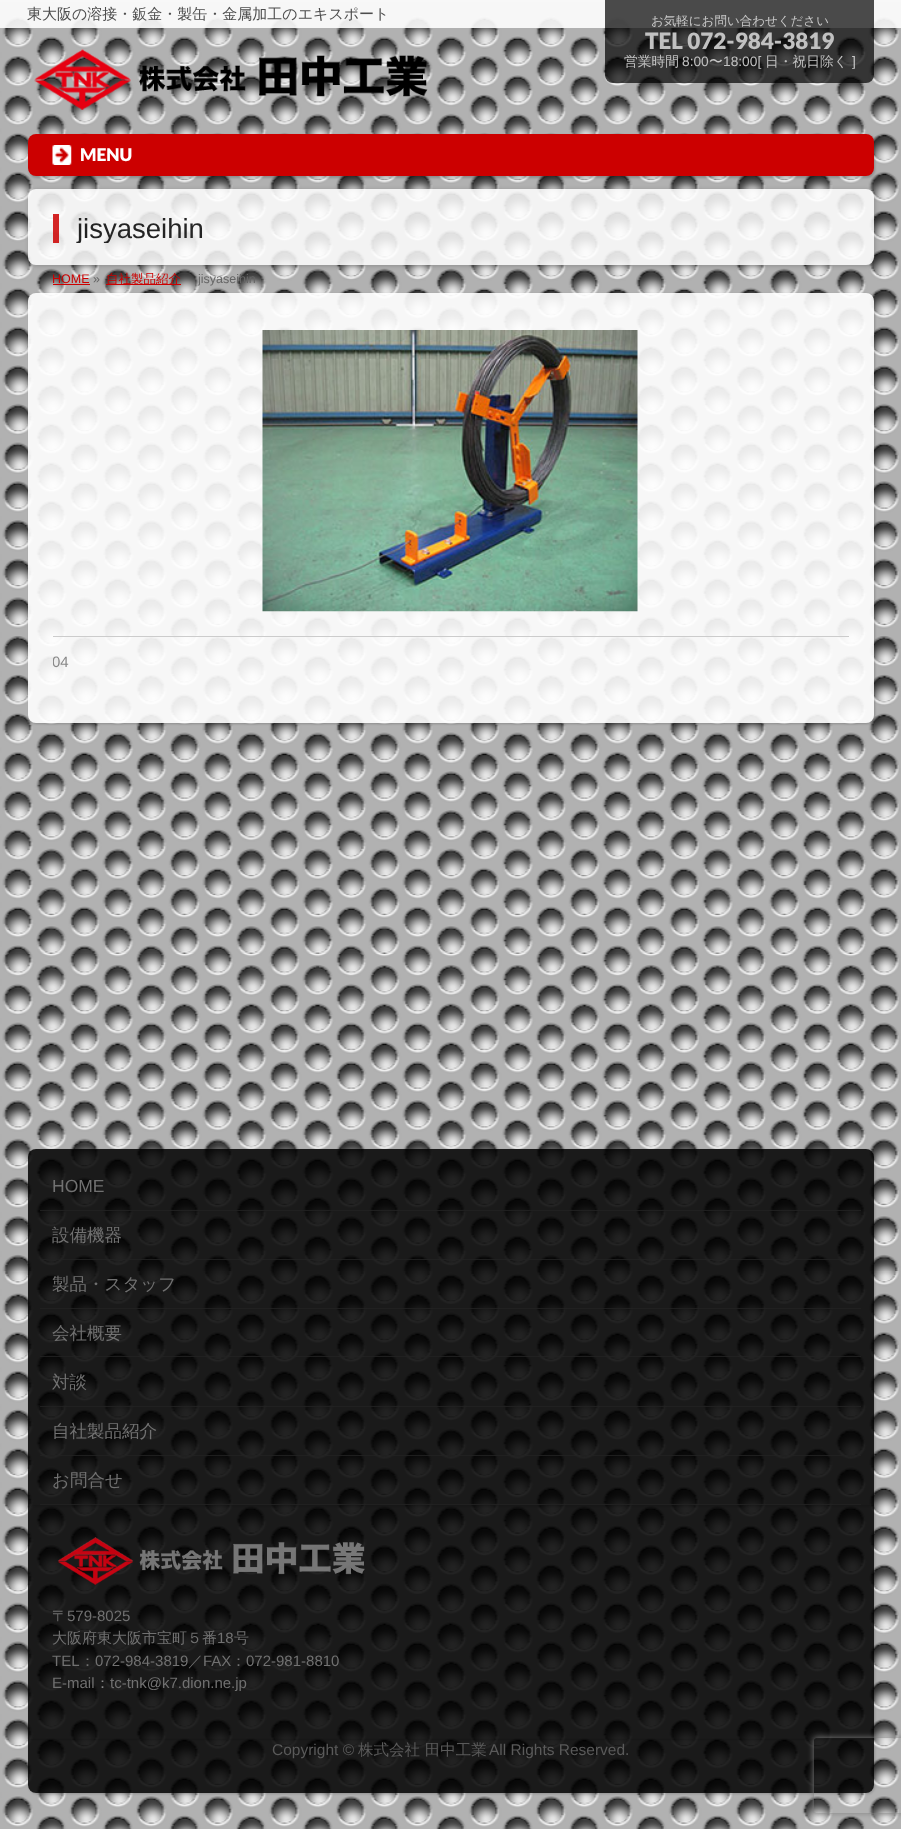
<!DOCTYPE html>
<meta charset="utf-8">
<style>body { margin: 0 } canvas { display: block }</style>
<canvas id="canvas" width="901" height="1829"></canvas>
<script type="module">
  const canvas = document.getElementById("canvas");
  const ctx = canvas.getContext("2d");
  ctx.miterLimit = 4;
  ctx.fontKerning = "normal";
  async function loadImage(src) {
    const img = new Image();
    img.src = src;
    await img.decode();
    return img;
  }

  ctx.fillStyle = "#ffffff";
  ctx.fillRect(0, 0, 901, 1829);
  ctx.drawImage(await loadImage("img1.png"), 0, 0, 901, 1829);
  ctx.fillStyle = "rgba(255, 255, 255, 0.9)";
  ctx.fillRect(0, 0, 901, 28);
  ctx.font = "500 15px WenQuanYi Zen Hei";
  ctx.fillStyle = "#4d4d4d";
  ctx.fillText("東大阪の溶接・鈑金・製缶・金属加工のエキスポート", 27, 19);
  ctx.fillStyle = "rgba(0, 0, 0, 0.7)";
  ctx.beginPath();
  ctx.roundRect(605, 0, 269, 83, [0, 0, 8, 8]);
  ctx.fill();
  ctx.font = "500 12.5px WenQuanYi Zen Hei";
  ctx.fillStyle = "#c8c8c8";
  ctx.fillText("お気軽にお問い合わせください", 651, 25);
  ctx.font = "900 22.5px Lato";
  ctx.fillStyle = "#c1c1c1";
  ctx.fillText("TEL 072-984-3819", 645, 49);
  ctx.font = "500 13.75px WenQuanYi Zen Hei";
  ctx.fillText("営業時間", 624, 66);
  ctx.font = "13.75px Liberation Sans";
  ctx.fillText("8:00", 682, 66);
  ctx.font = "500 13.75px WenQuanYi Zen Hei";
  ctx.fillStyle = "#c8c8c8";
  ctx.fillText("〜", 709, 66);
  ctx.font = "13.75px Liberation Sans";
  ctx.fillStyle = "#c1c1c1";
  ctx.fillText("18:00[", 723, 66);
  ctx.font = "500 13.75px WenQuanYi Zen Hei";
  ctx.fillText("日・祝日除く", 765, 66);
  ctx.font = "13.75px Liberation Sans";
  ctx.fillStyle = "#c8c8c8";
  ctx.fillText("]", 852, 66);
  ctx.drawImage(await loadImage("img2.png"), 34, 49, 394, 61);
  ctx.fillStyle = "rgba(0, 0, 0, 0.2)";
  ctx.filter = "blur(1px)";
  ctx.beginPath();
  ctx.roundRect(29, 135, 846, 43, 8);
  ctx.fill();
  ctx.filter = "none";
  ctx.fillStyle = "#cc0000";
  ctx.beginPath();
  ctx.roundRect(28, 134, 846, 42, 8);
  ctx.fill();
  ctx.drawImage(await loadImage("img3.png"), 52, 145, 20, 20);
  ctx.font = "900 17.5px Lato";
  ctx.fillStyle = "#ffffff";
  ctx.fillText("MENU", 80, 161);
  ctx.save();
  ctx.beginPath();
  ctx.moveTo(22, 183);
  ctx.lineTo(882, 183);
  ctx.lineTo(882, 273);
  ctx.lineTo(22, 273);
  ctx.closePath();
  ctx.moveTo(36, 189);
  ctx.lineTo(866, 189);
  ctx.bezierCurveTo(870.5, 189, 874, 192.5, 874, 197);
  ctx.lineTo(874, 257);
  ctx.bezierCurveTo(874, 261.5, 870.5, 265, 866, 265);
  ctx.lineTo(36, 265);
  ctx.bezierCurveTo(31.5, 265, 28, 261.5, 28, 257);
  ctx.lineTo(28, 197);
  ctx.bezierCurveTo(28, 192.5, 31.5, 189, 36, 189);
  ctx.closePath();
  ctx.clip("evenodd");
  ctx.fillStyle = "rgba(0, 0, 0, 0.2)";
  ctx.filter = "blur(2px)";
  ctx.beginPath();
  ctx.roundRect(29, 190, 846, 76, 8);
  ctx.fill();
  ctx.filter = "none";
  ctx.restore();
  ctx.fillStyle = "rgba(255, 255, 255, 0.85)";
  ctx.beginPath();
  ctx.roundRect(28, 189, 846, 76, 8);
  ctx.fill();
  ctx.fillStyle = "rgba(204, 0, 0, 0.85)";
  ctx.fillRect(53, 214, 6, 29);
  ctx.save();
  ctx.beginPath();
  ctx.rect(59, 214, 790, 29);
  ctx.clip();
  ctx.font = "27.5px Liberation Sans";
  ctx.fillStyle = "#242424";
  ctx.fillText("jisyaseihin", 77, 238);
  ctx.restore();
  ctx.font = "12.5px Liberation Sans";
  ctx.fillStyle = "#cc0000";
  ctx.fillText("HOME", 52, 283);
  ctx.fillRect(53, 284, 37, 1);
  ctx.fillStyle = "#666666";
  ctx.fillText("»", 93, 283);
  ctx.fillStyle = "#cc0000";
  ctx.fillRect(106, 284, 75, 1);
  ctx.font = "500 12.5px WenQuanYi Zen Hei";
  ctx.fillText("自社製品紹介", 106, 283);
  ctx.font = "12.5px Liberation Sans";
  ctx.fillStyle = "#666666";
  ctx.fillText("jisyaseihin", 198, 283);
  ctx.save();
  ctx.beginPath();
  ctx.moveTo(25, 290);
  ctx.lineTo(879, 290);
  ctx.lineTo(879, 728);
  ctx.lineTo(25, 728);
  ctx.closePath();
  ctx.moveTo(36, 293);
  ctx.lineTo(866, 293);
  ctx.bezierCurveTo(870.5, 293, 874, 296.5, 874, 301);
  ctx.lineTo(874, 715);
  ctx.bezierCurveTo(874, 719.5, 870.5, 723, 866, 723);
  ctx.lineTo(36, 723);
  ctx.bezierCurveTo(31.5, 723, 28, 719.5, 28, 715);
  ctx.lineTo(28, 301);
  ctx.bezierCurveTo(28, 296.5, 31.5, 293, 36, 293);
  ctx.closePath();
  ctx.clip("evenodd");
  ctx.fillStyle = "rgba(0, 0, 0, 0.2)";
  ctx.filter = "blur(1px)";
  ctx.beginPath();
  ctx.roundRect(29, 294, 846, 430, 8);
  ctx.fill();
  ctx.filter = "none";
  ctx.restore();
  ctx.fillStyle = "rgba(255, 255, 255, 0.9)";
  ctx.beginPath();
  ctx.roundRect(28, 293, 846, 430, 8);
  ctx.fill();
  ctx.drawImage(await loadImage("img4.png"), 262, 330, 376, 282);
  ctx.fillStyle = "#cccccc";
  ctx.fillRect(53, 636, 796, 1);
  ctx.save();
  ctx.beginPath();
  ctx.rect(53, 638, 796, 53);
  ctx.clip();
  ctx.font = "15px Liberation Sans";
  ctx.fillStyle = "#888888";
  ctx.fillText("04", 52, 667);
  ctx.restore();
  ctx.save();
  ctx.beginPath();
  ctx.moveTo(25, 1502);
  ctx.lineTo(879, 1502);
  ctx.lineTo(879, 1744);
  ctx.lineTo(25, 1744);
  ctx.closePath();
  ctx.moveTo(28, 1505);
  ctx.lineTo(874, 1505);
  ctx.lineTo(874, 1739);
  ctx.lineTo(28, 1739);
  ctx.closePath();
  ctx.clip("evenodd");
  ctx.fillStyle = "rgba(0, 0, 0, 0.17)";
  ctx.filter = "blur(1px)";
  ctx.beginPath();
  ctx.rect(29, 1506, 846, 234);
  ctx.fill();
  ctx.filter = "none";
  ctx.restore();
  ctx.fillStyle = "rgba(0, 0, 0, 0.85)";
  ctx.fillRect(28, 1505, 846, 234);
  ctx.save();
  ctx.beginPath();
  ctx.moveTo(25, 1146);
  ctx.lineTo(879, 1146);
  ctx.lineTo(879, 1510);
  ctx.lineTo(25, 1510);
  ctx.closePath();
  ctx.moveTo(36, 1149);
  ctx.lineTo(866, 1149);
  ctx.bezierCurveTo(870.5, 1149, 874, 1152.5, 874, 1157);
  ctx.lineTo(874, 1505);
  ctx.lineTo(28, 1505);
  ctx.lineTo(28, 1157);
  ctx.bezierCurveTo(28, 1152.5, 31.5, 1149, 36, 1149);
  ctx.closePath();
  ctx.clip("evenodd");
  ctx.fillStyle = "rgba(0, 0, 0, 0.17)";
  ctx.filter = "blur(1px)";
  ctx.beginPath();
  ctx.roundRect(29, 1150, 846, 356, 8);
  ctx.fill();
  ctx.filter = "none";
  ctx.restore();
  ctx.beginPath();
  ctx.roundRect(28, 1149, 846, 356, [8, 8, 0, 0]);
  ctx.fill();
  ctx.fillStyle = "rgba(34, 34, 34, 0.85)";
  ctx.fillRect(40, 1210, 821, 1);
  ctx.font = "17.5px Liberation Sans";
  ctx.fillStyle = "#717171";
  ctx.fillText("HOME", 52, 1192);
  ctx.fillStyle = "rgba(34, 34, 34, 0.85)";
  ctx.fillRect(40, 1259, 821, 1);
  ctx.font = "500 17.5px WenQuanYi Zen Hei";
  ctx.fillStyle = "#717171";
  ctx.fillText("設備機器", 52, 1241);
  ctx.fillStyle = "rgba(34, 34, 34, 0.85)";
  ctx.fillRect(40, 1308, 821, 1);
  ctx.fillStyle = "#717171";
  ctx.fillText("製品・スタッフ", 52, 1290);
  ctx.fillStyle = "rgba(34, 34, 34, 0.85)";
  ctx.fillRect(40, 1356, 821, 1);
  ctx.fillStyle = "#717171";
  ctx.fillText("会社概要", 52, 1339);
  ctx.fillStyle = "rgba(34, 34, 34, 0.85)";
  ctx.fillRect(40, 1406, 821, 1);
  ctx.fillStyle = "#717171";
  ctx.fillText("対談", 52, 1388);
  ctx.fillStyle = "rgba(34, 34, 34, 0.85)";
  ctx.fillRect(40, 1455, 821, 1);
  ctx.fillStyle = "#717171";
  ctx.fillText("自社製品紹介", 52, 1437);
  ctx.fillStyle = "rgba(34, 34, 34, 0.85)";
  ctx.fillRect(40, 1504, 821, 1);
  ctx.fillStyle = "#717171";
  ctx.fillText("お問合せ", 52, 1486);
  ctx.drawImage(await loadImage("img5.png"), 57, 1537, 308, 48);
  ctx.font = "500 15px WenQuanYi Zen Hei";
  ctx.fillText("〒", 52, 1621);
  ctx.font = "15px Liberation Sans";
  ctx.fillText("579-8025", 67, 1621);
  ctx.font = "500 15px WenQuanYi Zen Hei";
  ctx.fillText("大阪府東大阪市宝町５番", 52, 1643);
  ctx.font = "15px Liberation Sans";
  ctx.fillText("18", 217, 1643);
  ctx.font = "500 15px WenQuanYi Zen Hei";
  ctx.fillText("号", 234, 1643);
  ctx.font = "15px Liberation Sans";
  ctx.fillText("TEL", 52, 1666);
  ctx.font = "500 15px WenQuanYi Zen Hei";
  ctx.fillText("：", 80, 1666);
  ctx.font = "15px Liberation Sans";
  ctx.fillText("072-984-3819", 95, 1666);
  ctx.font = "500 15px WenQuanYi Zen Hei";
  ctx.fillText("／", 188, 1666);
  ctx.font = "15px Liberation Sans";
  ctx.fillText("FAX", 203, 1666);
  ctx.font = "500 15px WenQuanYi Zen Hei";
  ctx.fillText("：", 231, 1666);
  ctx.font = "15px Liberation Sans";
  ctx.fillText("072-981-8810", 246, 1666);
  ctx.fillText("E-mail", 52, 1688);
  ctx.font = "500 15px WenQuanYi Zen Hei";
  ctx.fillStyle = "#888888";
  ctx.fillText("：", 95, 1688);
  ctx.font = "15px Liberation Sans";
  ctx.fillStyle = "#717171";
  ctx.fillText("tc-tnk@k7.dion.ne.jp", 110, 1688);
  ctx.save();
  ctx.beginPath();
  ctx.moveTo(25, 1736);
  ctx.lineTo(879, 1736);
  ctx.lineTo(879, 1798);
  ctx.lineTo(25, 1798);
  ctx.closePath();
  ctx.moveTo(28, 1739);
  ctx.lineTo(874, 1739);
  ctx.lineTo(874, 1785);
  ctx.bezierCurveTo(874, 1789.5, 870.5, 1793, 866, 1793);
  ctx.lineTo(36, 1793);
  ctx.bezierCurveTo(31.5, 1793, 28, 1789.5, 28, 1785);
  ctx.closePath();
  ctx.clip("evenodd");
  ctx.fillStyle = "rgba(0, 0, 0, 0.17)";
  ctx.filter = "blur(1px)";
  ctx.beginPath();
  ctx.roundRect(29, 1740, 846, 54, 8);
  ctx.fill();
  ctx.filter = "none";
  ctx.restore();
  ctx.fillStyle = "rgba(0, 0, 0, 0.85)";
  ctx.beginPath();
  ctx.roundRect(28, 1739, 846, 54, [0, 0, 8, 8]);
  ctx.fill();
  ctx.font = "15.5px Liberation Sans";
  ctx.fillStyle = "#5a5a5a";
  ctx.fillText("Copyright ©", 272, 1755);
  ctx.font = "500 15.5px WenQuanYi Zen Hei";
  ctx.fillText("株式会社 田中工業", 358, 1755);
  ctx.font = "15.5px Liberation Sans";
  ctx.fillText("All Rights Reserved.", 489, 1755);
  ctx.save();
  ctx.beginPath();
  ctx.moveTo(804, 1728);
  ctx.lineTo(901, 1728);
  ctx.lineTo(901, 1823);
  ctx.lineTo(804, 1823);
  ctx.closePath();
  ctx.moveTo(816.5, 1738);
  ctx.lineTo(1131.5, 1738);
  ctx.bezierCurveTo(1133, 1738, 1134, 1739, 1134, 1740.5);
  ctx.lineTo(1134, 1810.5);
  ctx.bezierCurveTo(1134, 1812, 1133, 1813, 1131.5, 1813);
  ctx.lineTo(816.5, 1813);
  ctx.bezierCurveTo(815, 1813, 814, 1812, 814, 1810.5);
  ctx.lineTo(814, 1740.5);
  ctx.bezierCurveTo(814, 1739, 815, 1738, 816.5, 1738);
  ctx.closePath();
  ctx.clip("evenodd");
  ctx.fillStyle = "#808080";
  ctx.filter = "blur(3px)";
  ctx.beginPath();
  ctx.roundRect(814, 1738, 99, 75, 2.5);
  ctx.fill();
  ctx.filter = "none";
  ctx.restore();
</script>
